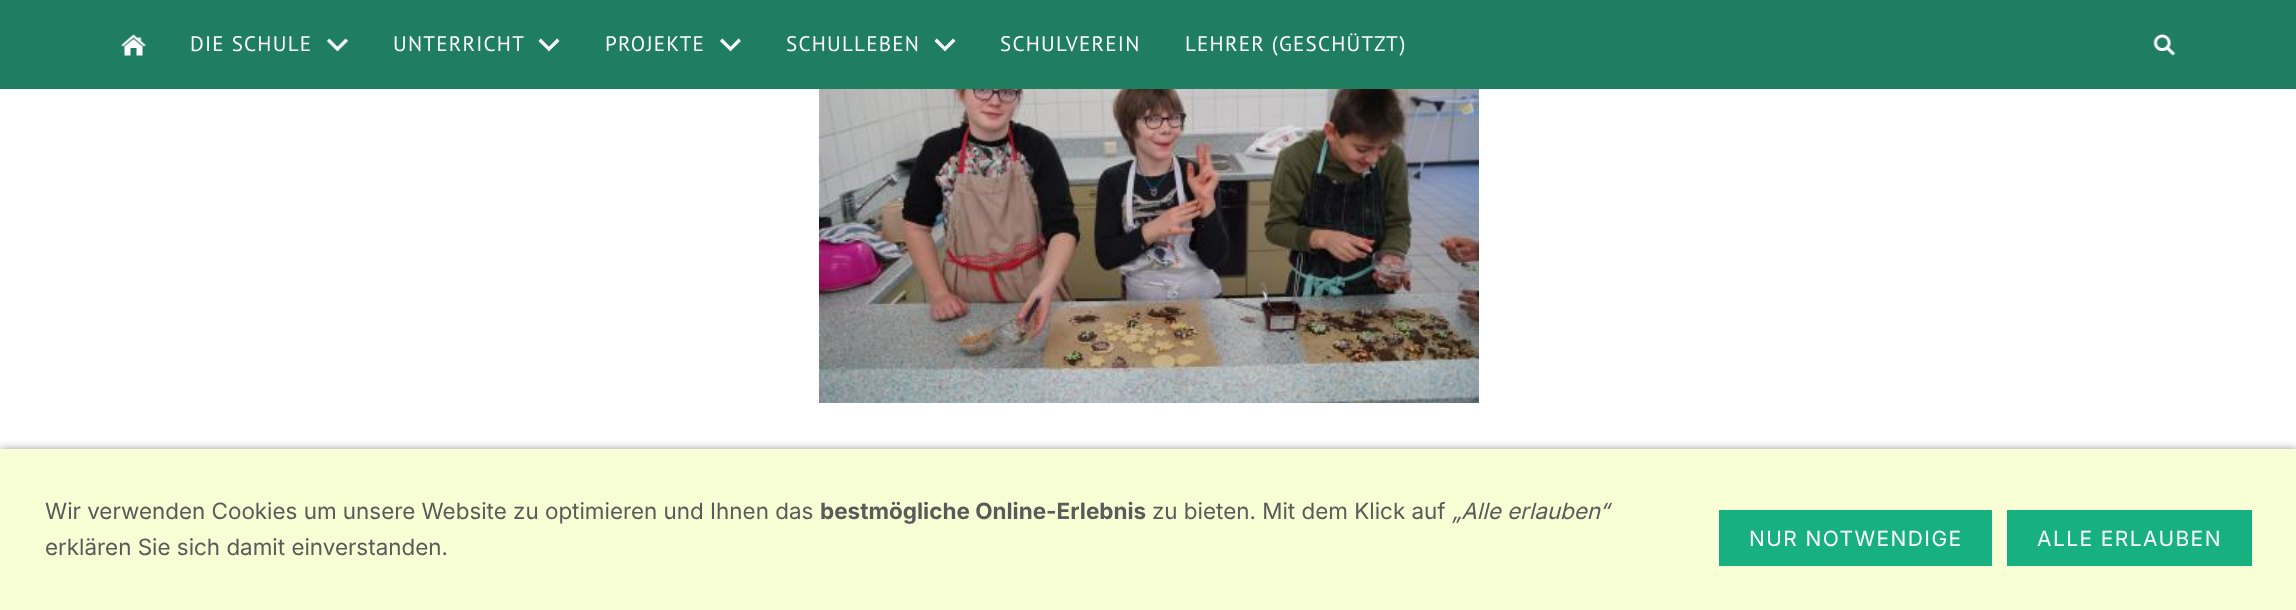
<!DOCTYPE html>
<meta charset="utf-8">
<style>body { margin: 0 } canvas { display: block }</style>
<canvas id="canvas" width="2296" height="610"></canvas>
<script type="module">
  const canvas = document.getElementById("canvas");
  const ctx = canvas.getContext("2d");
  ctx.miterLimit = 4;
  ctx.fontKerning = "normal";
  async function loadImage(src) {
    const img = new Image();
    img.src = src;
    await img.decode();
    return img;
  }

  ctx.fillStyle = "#ffffff";
  ctx.fillRect(0, 0, 2296, 610);
  ctx.fillStyle = "#1f7d60";
  ctx.fillRect(0, 0, 2296, 89);
  ctx.drawImage(await loadImage("img1.png"), 121, 34, 25, 22);
  ctx.drawImage(await loadImage("img2.png"), 326, 38, 23, 14);
  ctx.letterSpacing = "1.25px";
  ctx.font = "21px PT Sans";
  ctx.fillStyle = "#ffffff";
  ctx.fillText("DIE SCHULE", 190, 51);
  ctx.drawImage(await loadImage("img3.png"), 538, 38, 22, 14);
  ctx.fillText("UNTERRICHT", 393, 51);
  ctx.drawImage(await loadImage("img4.png"), 720, 38, 21, 14);
  ctx.fillText("PROJEKTE", 605, 51);
  ctx.drawImage(await loadImage("img3.png"), 934, 38, 22, 14);
  ctx.fillText("SCHULLEBEN", 786, 51);
  ctx.fillText("SCHULVEREIN", 1000, 51);
  ctx.fillText("LEHRER (GESCHÜTZT)", 1185, 51);
  ctx.drawImage(await loadImage("img5.png"), 2153, 34, 23, 22);
  ctx.drawImage(await loadImage("img6.png"), 819, 89, 660, 314);
  ctx.fillStyle = "rgba(0, 0, 0, 0.4)";
  ctx.filter = "blur(4px)";
  ctx.beginPath();
  ctx.rect(0, 449, 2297, 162);
  ctx.fill();
  ctx.filter = "none";
  ctx.fillStyle = "#f8ffd4";
  ctx.fillRect(0, 449, 2296, 161);
  ctx.letterSpacing = "0px";
  ctx.font = "22.5px Inter";
  ctx.fillStyle = "#5a5a5a";
  ctx.fillText("Wir verwenden Cookies um unsere Website zu optimieren und Ihnen das", 45, 519);
  ctx.font = "bold 22.5px Inter";
  ctx.fillText("bestmögliche Online-Erlebnis", 820, 519);
  ctx.font = "22.5px Inter";
  ctx.fillText("zu bieten. Mit dem Klick auf", 1152, 519);
  ctx.font = "italic 22.5px Inter";
  ctx.fillText("„Alle erlauben“", 1452, 519);
  ctx.font = "22.5px Inter";
  ctx.fillText("erklären Sie sich damit einverstanden.", 45, 555);
  ctx.fillStyle = "#16b081";
  ctx.fillRect(1719, 510, 273, 56);
  ctx.letterSpacing = "1.4px";
  ctx.font = "21px 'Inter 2'";
  ctx.fillStyle = "#ffffff";
  ctx.fillText("NUR NOTWENDIGE", 1749, 546);
  ctx.fillStyle = "#16b081";
  ctx.fillRect(2007, 510, 245, 56);
  ctx.fillStyle = "#ffffff";
  ctx.fillText("ALLE ERLAUBEN", 2037, 546);
</script>
